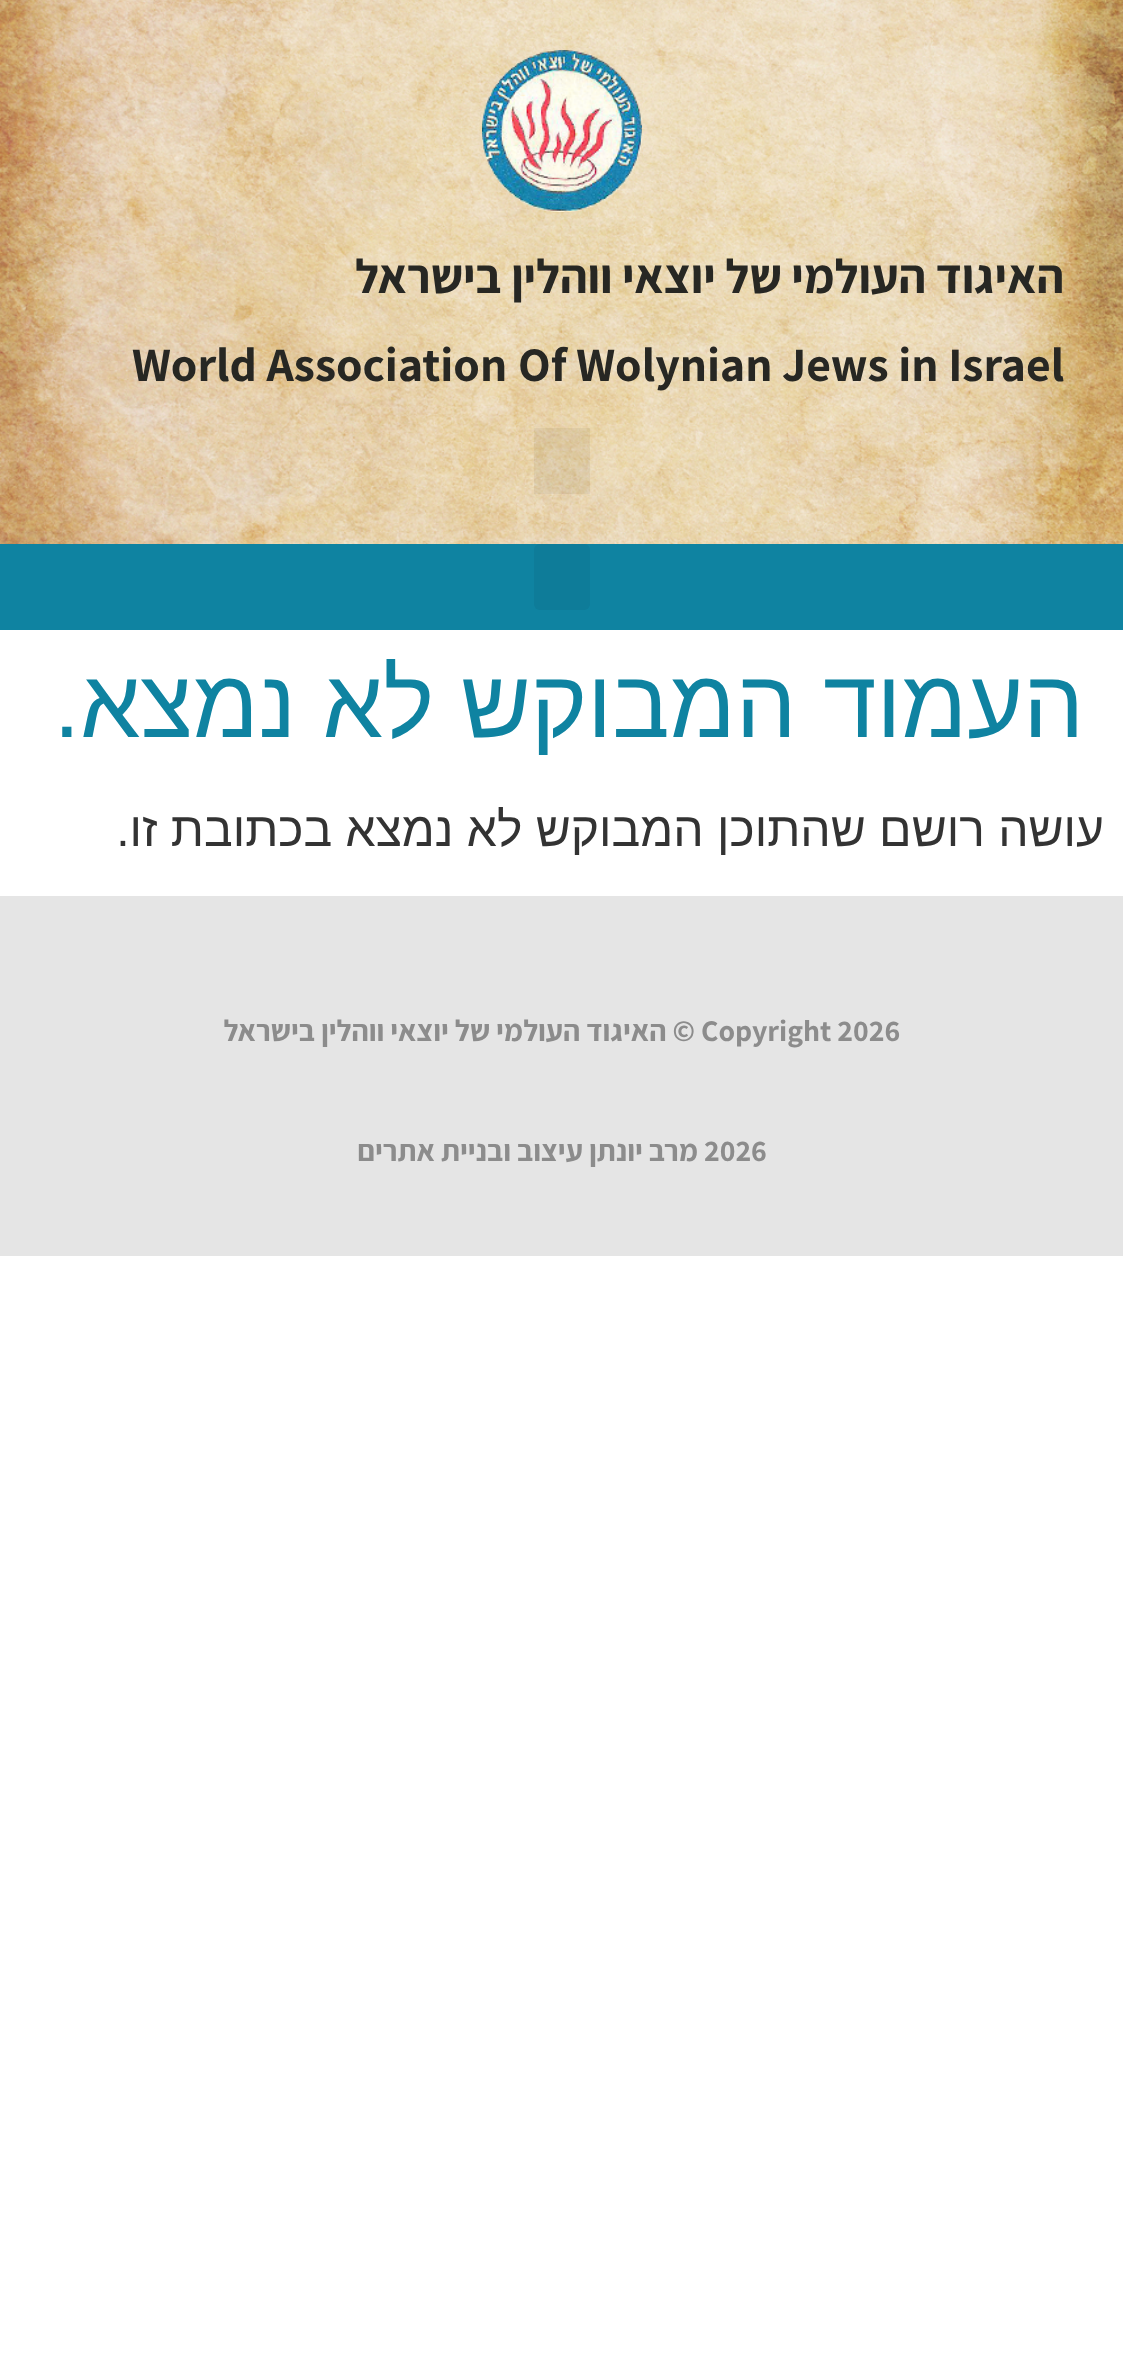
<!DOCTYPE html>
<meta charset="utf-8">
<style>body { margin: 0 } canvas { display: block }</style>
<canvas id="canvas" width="1123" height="2376"></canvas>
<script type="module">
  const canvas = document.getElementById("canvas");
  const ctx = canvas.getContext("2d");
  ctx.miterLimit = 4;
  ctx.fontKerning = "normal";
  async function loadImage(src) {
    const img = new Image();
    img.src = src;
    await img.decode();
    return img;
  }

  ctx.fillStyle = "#ffffff";
  ctx.fillRect(0, 0, 1123, 2376);
  ctx.drawImage(await loadImage("img1.png"), 0, 0, 1123, 544);
  ctx.drawImage(await loadImage("img2.png"), 482, 50, 160, 162);
  ctx.direction = "rtl";
  ctx.font = "bold 48px Assistant";
  ctx.fillStyle = "#272723";
  ctx.fillText("האיגוד העולמי של יוצאי ווהלין בישראל", 1064, 293);
  ctx.direction = "ltr";
  ctx.fillText("Of Wolynian Jews in Israel", 518, 381);
  ctx.fillText("World Association", 132, 381);
  ctx.fillStyle = "rgba(0, 0, 0, 0.05)";
  ctx.fillRect(534, 428, 56, 66);
  ctx.fillStyle = "#0f83a1";
  ctx.fillRect(0, 544, 1123, 86);
  ctx.fillStyle = "#0e7c99";
  ctx.beginPath();
  ctx.roundRect(534, 544, 56, 66, 6);
  ctx.fill();
  ctx.direction = "rtl";
  ctx.font = "96px Liberation Sans";
  ctx.fillStyle = "#0f83a1";
  ctx.fillText("העמוד המבוקש לא נמצא.", 1084, 737);
  ctx.font = "48px Liberation Sans";
  ctx.fillStyle = "#333333";
  ctx.fillText("עושה רושם שהתוכן המבוקש לא נמצא בכתובת זו.", 1104, 846);
  ctx.fillStyle = "#e5e5e5";
  ctx.fillRect(0, 896, 1123, 360);
  ctx.direction = "ltr";
  ctx.font = "bold 30px Assistant";
  ctx.fillStyle = "#8c8c8c";
  ctx.fillText("Copyright 2026", 701, 1041);
  ctx.direction = "rtl";
  ctx.fillText("© האיגוד העולמי של יוצאי ווהלין בישראל", 695, 1041);
  ctx.direction = "ltr";
  ctx.fillText("2026", 704, 1161);
  ctx.direction = "rtl";
  ctx.fillText("מרב יונתן עיצוב ובניית אתרים", 698, 1161);
</script>
